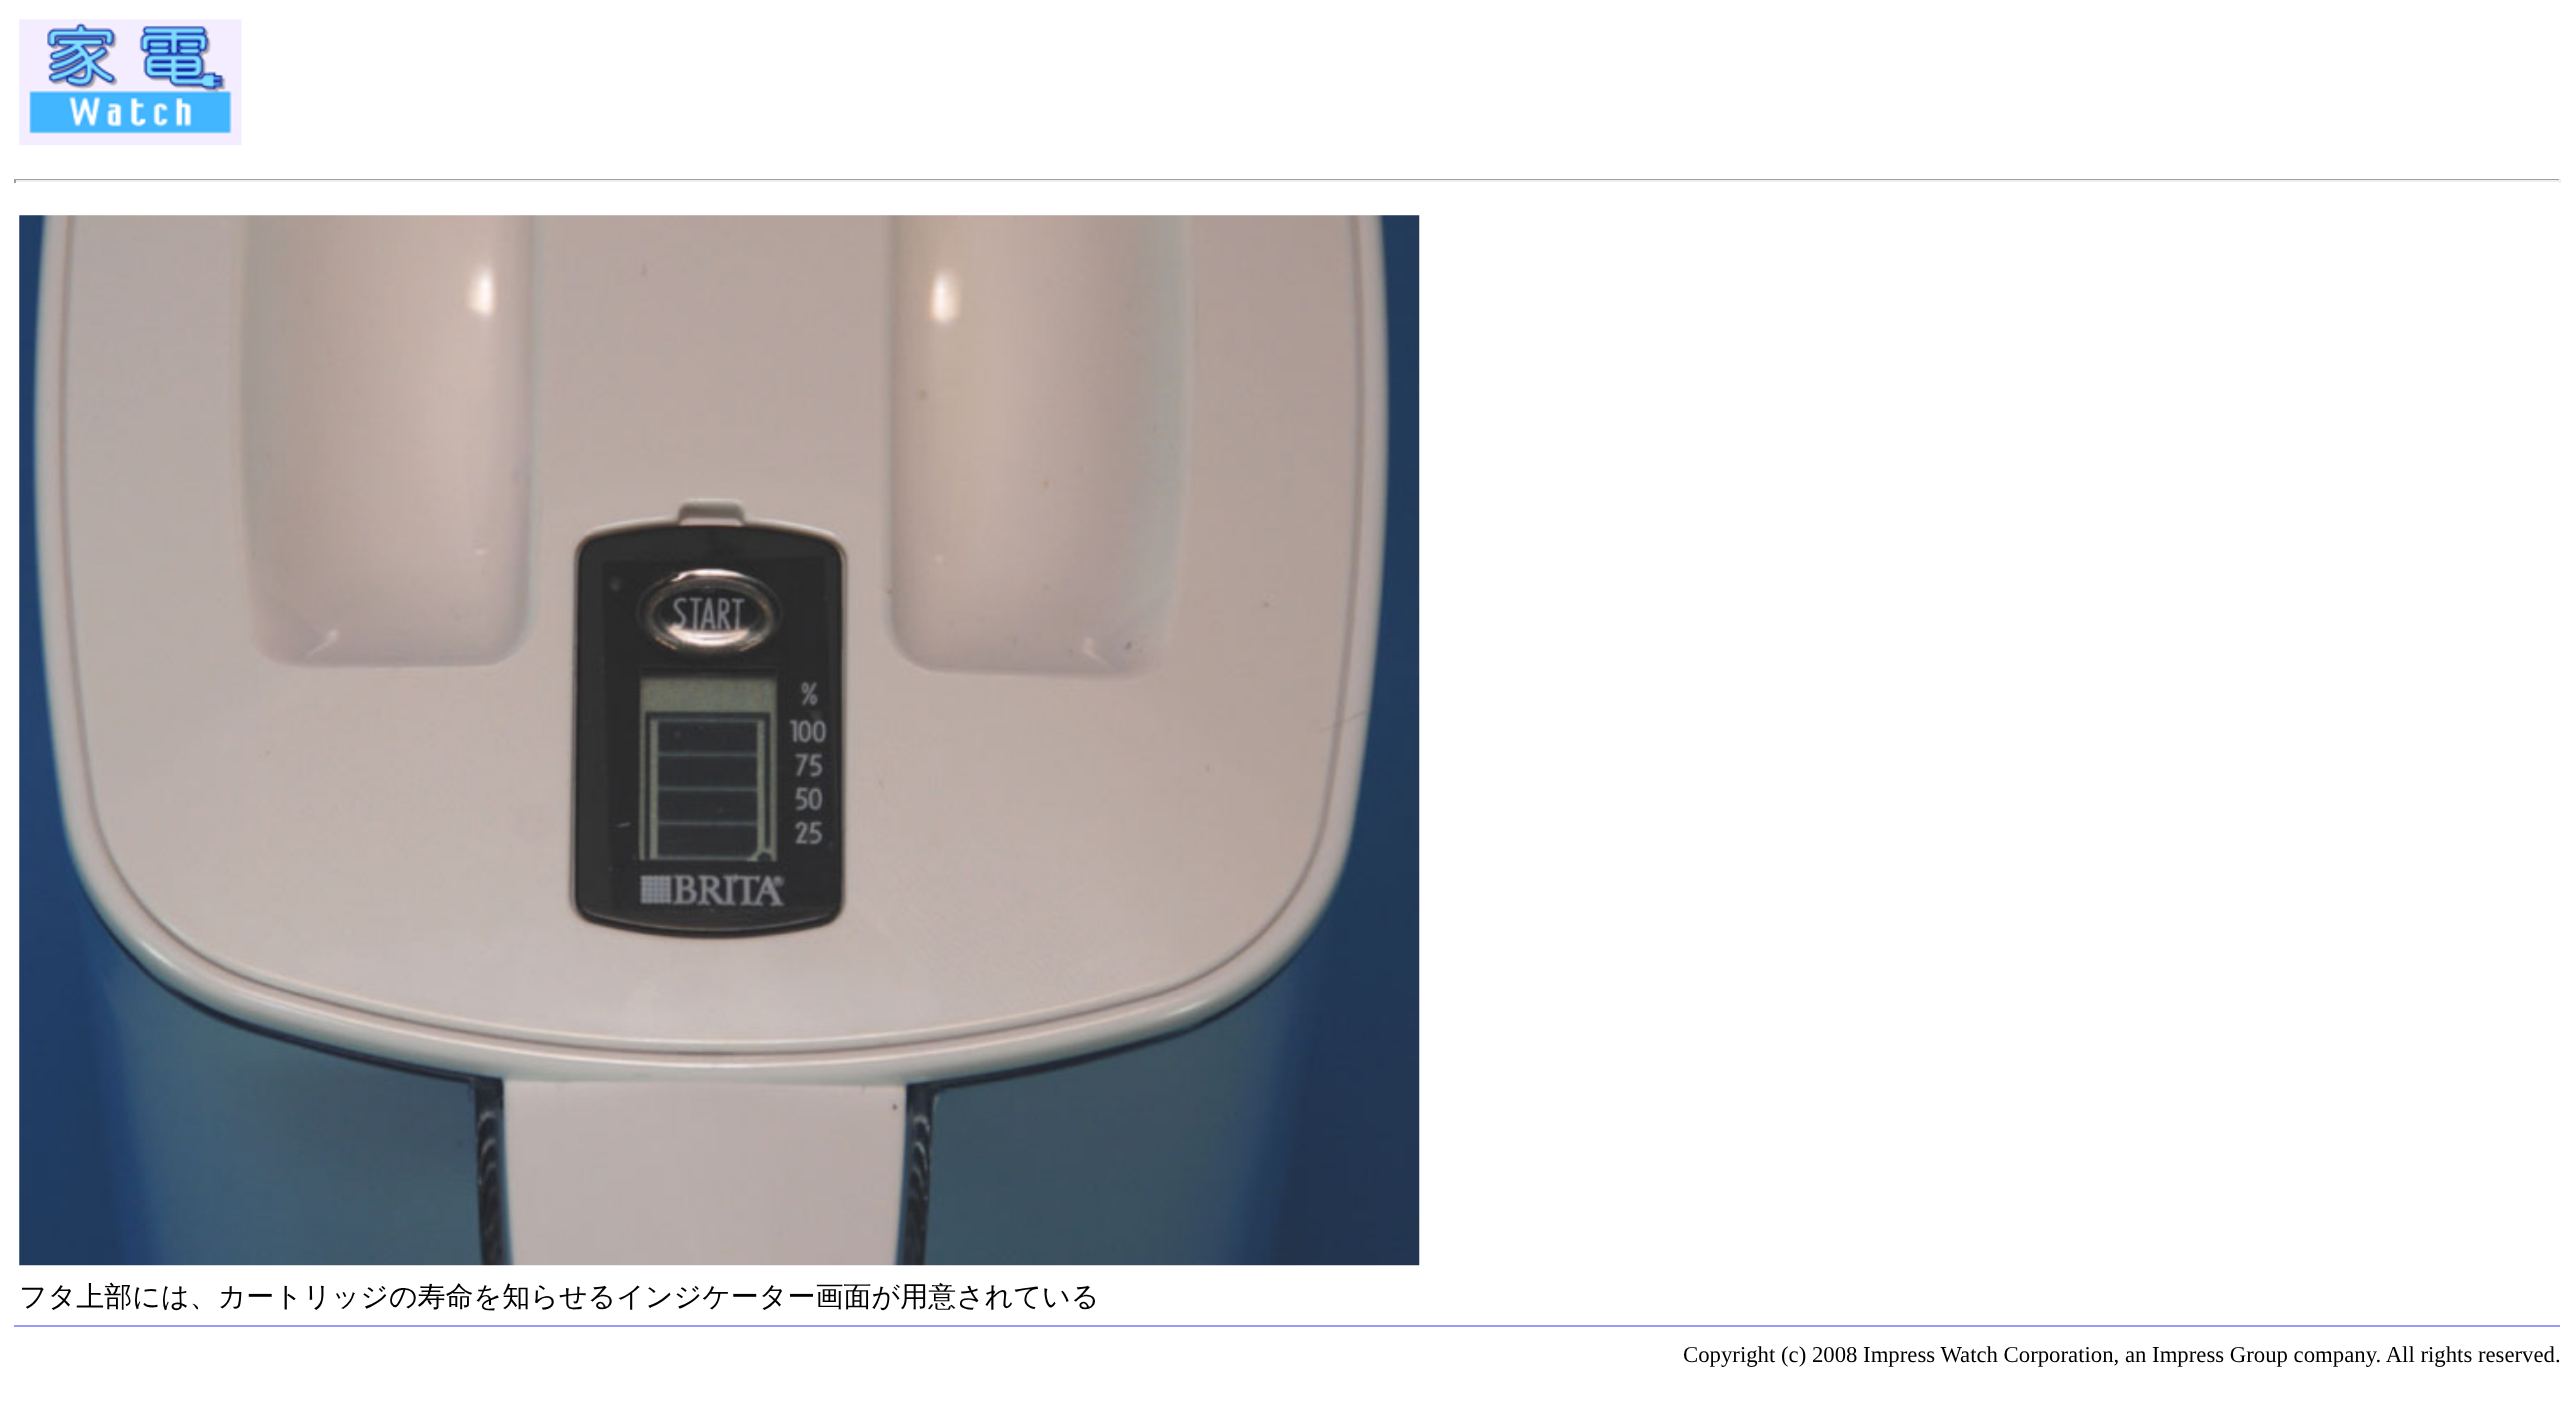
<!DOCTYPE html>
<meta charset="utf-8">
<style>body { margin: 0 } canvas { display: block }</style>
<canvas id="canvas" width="2573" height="1412"></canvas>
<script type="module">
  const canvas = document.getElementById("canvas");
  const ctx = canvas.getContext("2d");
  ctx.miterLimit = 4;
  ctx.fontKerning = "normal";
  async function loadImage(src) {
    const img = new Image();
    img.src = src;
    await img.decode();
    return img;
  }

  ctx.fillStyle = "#ffffff";
  ctx.fillRect(0, 0, 2573, 1412);
  ctx.drawImage(await loadImage("img1.png"), 19, 19, 223, 127);
  ctx.fillStyle = "#9f9f9f";
  ctx.fillRect(14, 179, 2546, 1);
  ctx.fillStyle = "#eeeeee";
  ctx.fillRect(2559, 179, 2, 4);
  ctx.fillRect(14, 180, 2546, 2);
  ctx.fillStyle = "#9f9f9f";
  ctx.fillRect(14, 179, 2, 4);
  ctx.drawImage(await loadImage("img2.png"), 19, 215, 1401, 1051);
  ctx.font = "500 28px WenQuanYi Zen Hei";
  ctx.fillStyle = "#000000";
  ctx.fillText("フタ上部には、カートリッジの寿命を知らせるインジケーター画面が用意されている", 19, 1306);
  ctx.fillStyle = "#9999ff";
  ctx.fillRect(14, 1325, 2546, 2);
  ctx.font = "22.75px Liberation Serif";
  ctx.fillStyle = "#000000";
  ctx.fillText("Copyright (c) 2008 Impress Watch Corporation, an Impress Group company. All rights reserved.", 1683, 1362);
</script>
